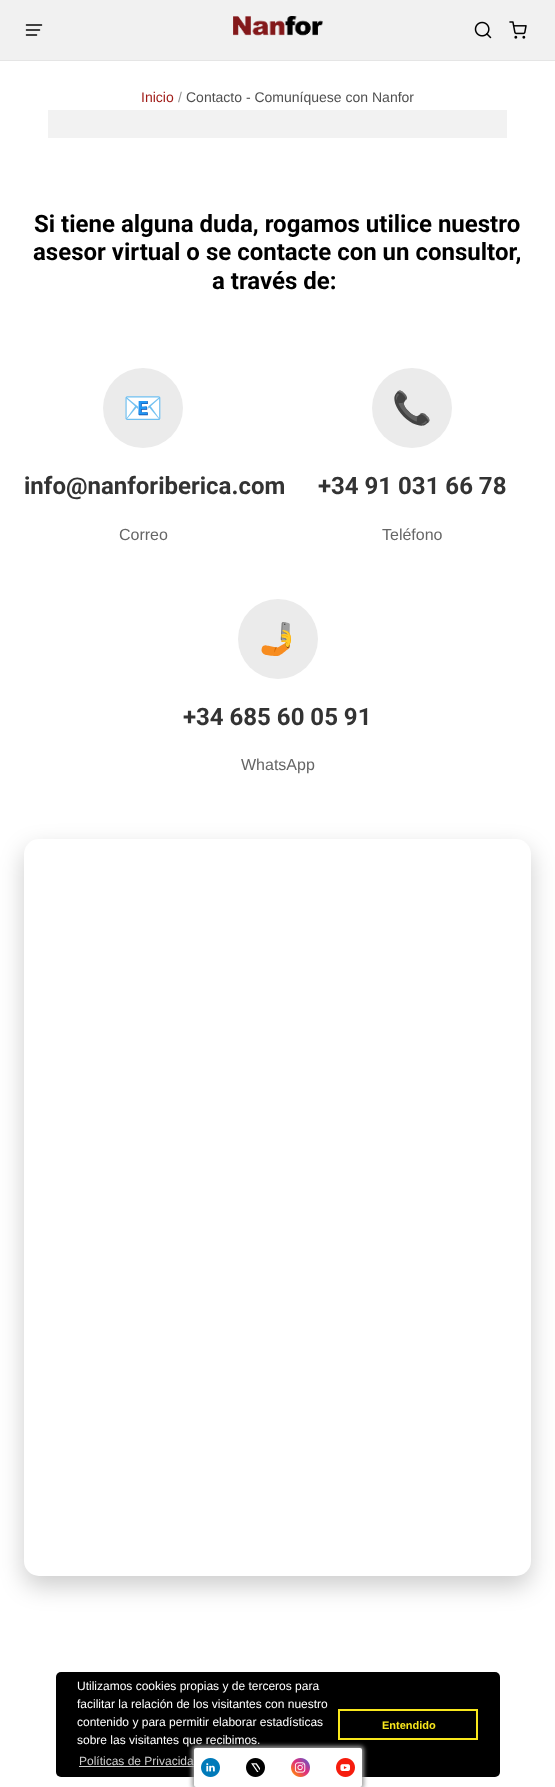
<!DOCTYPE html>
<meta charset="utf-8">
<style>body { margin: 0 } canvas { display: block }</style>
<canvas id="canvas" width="555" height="1787"></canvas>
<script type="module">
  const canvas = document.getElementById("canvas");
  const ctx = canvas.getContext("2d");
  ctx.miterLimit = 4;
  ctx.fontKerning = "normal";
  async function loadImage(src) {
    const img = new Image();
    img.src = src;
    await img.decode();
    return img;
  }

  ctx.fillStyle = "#ffffff";
  ctx.fillRect(0, 0, 555, 1787);
  ctx.fillStyle = "#f1f1f1";
  ctx.fillRect(0, 0, 555, 60);
  ctx.fillStyle = "#e5e5e5";
  ctx.fillRect(0, 60, 555, 1);
  ctx.drawImage(await loadImage("img1.png"), 25, 24, 18, 12);
  ctx.drawImage(await loadImage("img2.png"), 233, 16, 90, 20);
  ctx.drawImage(await loadImage("img3.png"), 474, 21, 18, 18);
  ctx.drawImage(await loadImage("img4.png"), 509, 21, 18, 18);
  ctx.font = "14px Liberation Sans";
  ctx.fillStyle = "#9f1915";
  ctx.fillText("Inicio", 141, 102);
  ctx.fillStyle = "#959595";
  ctx.fillText("/", 178, 102);
  ctx.fillStyle = "#4f4f4f";
  ctx.fillText("Contacto - Comuníquese con Nanfor", 186, 102);
  ctx.fillStyle = "#f2f2f2";
  ctx.fillRect(48, 110, 459, 28);
  ctx.font = "bold 24px Roboto";
  ctx.fillStyle = "#000000";
  ctx.fillText("Si tiene alguna duda, rogamos utilice nuestro", 34, 232);
  ctx.fillText("asesor virtual o se contacte con un consultor,", 33, 260);
  ctx.fillText("a través de:", 212, 289);
  ctx.fillStyle = "#ebebeb";
  ctx.beginPath();
  ctx.arc(143, 408, 40, 0, Math.PI * 2);
  ctx.fill();
  ctx.font = "32px Noto Color Emoji";
  ctx.fillStyle = "#9f1915";
  ctx.fillText("📧", 123, 419);
  ctx.font = "bold 24px Roboto";
  ctx.fillStyle = "#333333";
  ctx.fillText("info@nanforiberica.com", 24, 494);
  ctx.font = "16px Liberation Sans";
  ctx.fillStyle = "#666666";
  ctx.fillText("Correo", 119, 540);
  ctx.fillStyle = "#ebebeb";
  ctx.beginPath();
  ctx.arc(412, 408, 40, 0, Math.PI * 2);
  ctx.fill();
  ctx.font = "32px Noto Color Emoji";
  ctx.fillStyle = "#ffffff";
  ctx.fillText("📞", 392, 419);
  ctx.font = "bold 24px Roboto";
  ctx.fillStyle = "#333333";
  ctx.fillText("+34 91 031 66 78", 318, 494);
  ctx.font = "16px Liberation Sans";
  ctx.fillStyle = "#666666";
  ctx.fillText("Teléfono", 382, 540);
  ctx.fillStyle = "#ebebeb";
  ctx.beginPath();
  ctx.arc(278, 639, 40, 0, Math.PI * 2);
  ctx.fill();
  ctx.font = "32px Noto Color Emoji";
  ctx.fillStyle = "#9f1915";
  ctx.fillText("🤳", 258, 650);
  ctx.font = "bold 24px Roboto";
  ctx.fillStyle = "#333333";
  ctx.fillText("+34 685 60 05 91", 183, 725);
  ctx.font = "16px Liberation Sans";
  ctx.fillStyle = "#666666";
  ctx.fillText("WhatsApp", 241, 770);
  ctx.fillStyle = "rgba(0, 0, 0, 0.2)";
  ctx.filter = "blur(12.5px)";
  ctx.beginPath();
  ctx.roundRect(24, 849, 507, 737, 15);
  ctx.fill();
  ctx.filter = "none";
  ctx.fillStyle = "#ffffff";
  ctx.beginPath();
  ctx.roundRect(24, 839, 507, 737, 15);
  ctx.fill();
  ctx.fillStyle = "#000000";
  ctx.beginPath();
  ctx.roundRect(56, 1672, 444, 105, 5);
  ctx.fill();
  ctx.font = "12px Liberation Sans";
  ctx.fillStyle = "#ffffff";
  ctx.fillText("Utilizamos cookies propias y de terceros para", 77, 1690);
  ctx.fillText("facilitar la relación de los visitantes con nuestro", 77, 1708);
  ctx.fillText("contenido y para permitir elaborar estadísticas", 77, 1726);
  ctx.fillText("sobre las visitantes que recibimos.", 77, 1744);
  ctx.fillStyle = "#cccccc";
  ctx.fillText("Políticas de Privacida", 79, 1765);
  ctx.fillRect(79, 1766, 122, 1);
  ctx.strokeStyle = "#f8e71c";
  ctx.lineWidth = 2;
  ctx.strokeRect(339, 1710, 138, 29);
  ctx.font = "bold 11px Liberation Sans";
  ctx.fillStyle = "#f8e71c";
  ctx.fillText("Entendido", 382, 1729);
  ctx.fillStyle = "#9e9e9e";
  ctx.filter = "blur(2px)";
  ctx.beginPath();
  ctx.roundRect(192, 1746, 172, 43, 4);
  ctx.fill();
  ctx.filter = "none";
  ctx.fillStyle = "#ffffff";
  ctx.beginPath();
  ctx.roundRect(194, 1748, 168, 39, 2);
  ctx.fill();
  ctx.drawImage(await loadImage("img5.png"), 201, 1758, 19, 19);
  ctx.drawImage(await loadImage("img6.png"), 246, 1758, 19, 19);
  ctx.drawImage(await loadImage("img7.png"), 291, 1758, 19, 19);
  ctx.drawImage(await loadImage("img8.png"), 336, 1758, 19, 19);
</script>
